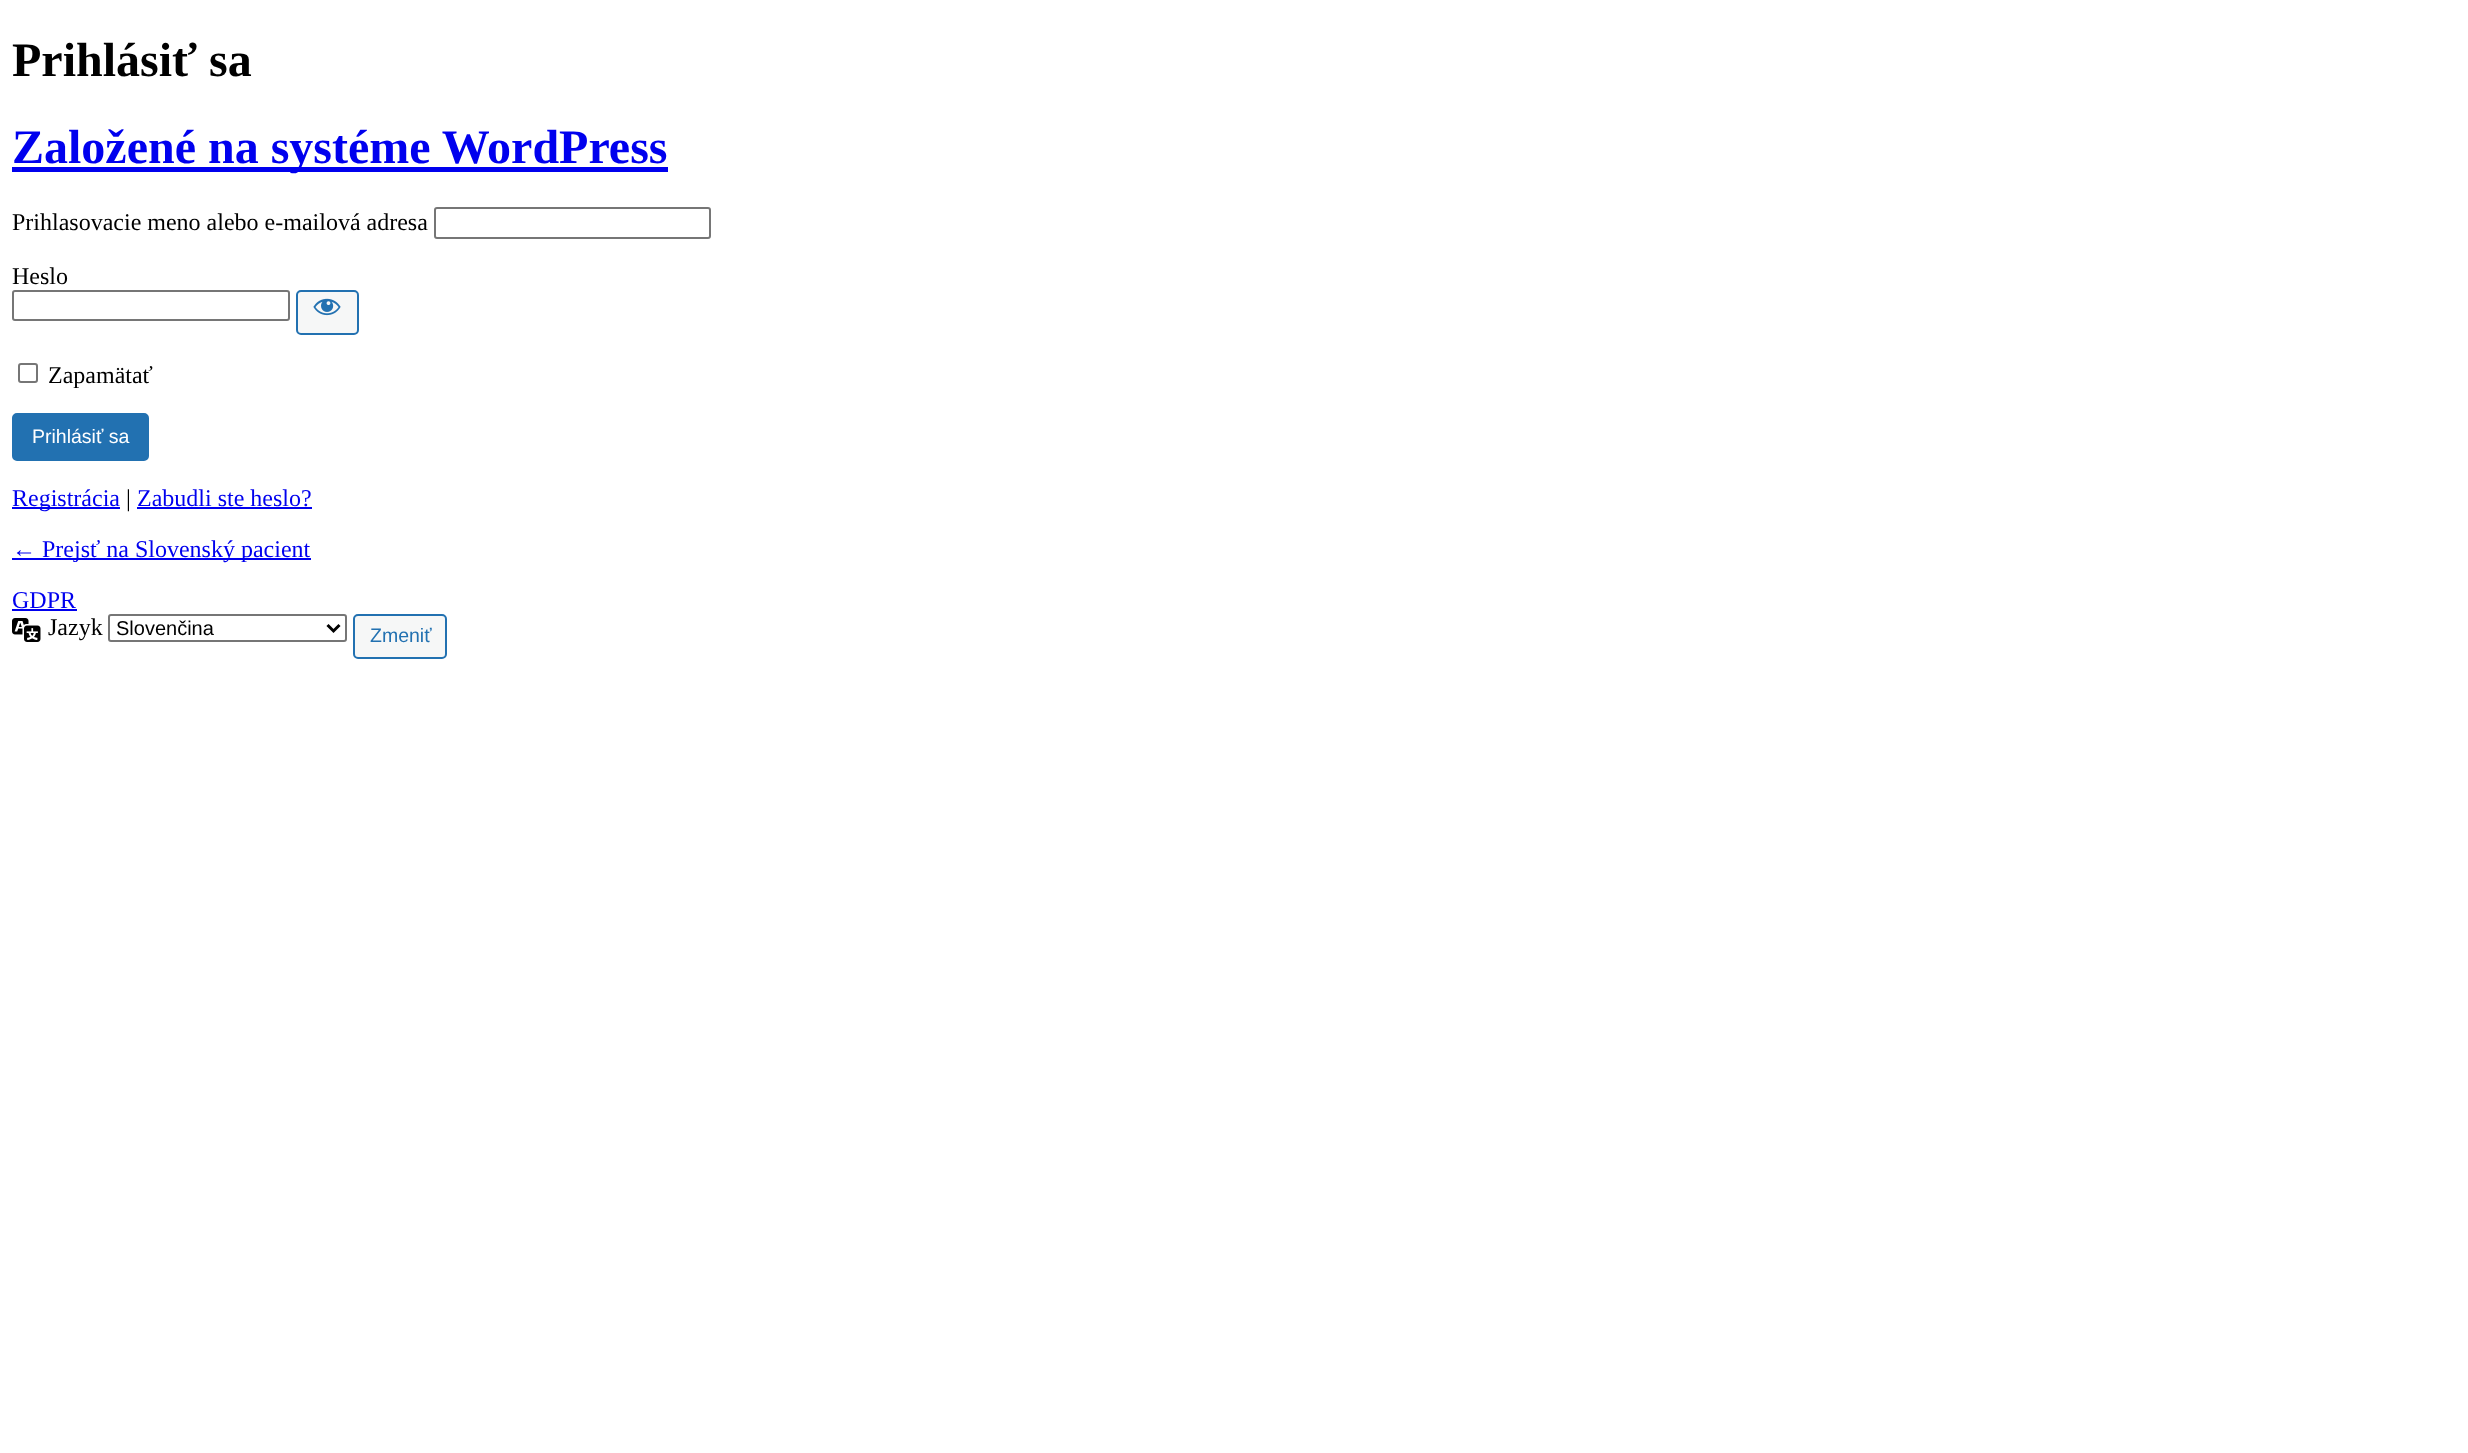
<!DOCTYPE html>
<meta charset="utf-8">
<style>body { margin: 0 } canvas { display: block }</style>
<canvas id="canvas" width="2468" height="1453"></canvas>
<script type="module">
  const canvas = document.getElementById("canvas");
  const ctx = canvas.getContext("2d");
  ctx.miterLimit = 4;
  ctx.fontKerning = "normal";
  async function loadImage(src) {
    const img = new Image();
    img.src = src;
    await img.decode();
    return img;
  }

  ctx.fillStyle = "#ffffff";
  ctx.fillRect(0, 0, 2468, 1453);
  ctx.font = "bold 48px Liberation Serif";
  ctx.fillStyle = "#000000";
  ctx.fillText("Prihlásiť sa", 12, 76);
  ctx.fillStyle = "#0000ee";
  ctx.fillRect(12, 167, 656, 5);
  ctx.fillText("Založené na systéme WordPress", 12, 163);
  ctx.font = "24px Liberation Serif";
  ctx.fillStyle = "#000000";
  ctx.fillText("Prihlasovacie meno alebo e-mailová adresa", 12, 230);
  ctx.beginPath();
  ctx.roundRect(435, 208, 275, 30, 2);
  ctx.strokeStyle = "#767676";
  ctx.lineWidth = 2;
  ctx.stroke();
  ctx.fillText("Heslo", 12, 284);
  ctx.beginPath();
  ctx.roundRect(13, 291, 276, 29, 2);
  ctx.stroke();
  ctx.fillStyle = "#f6f7f7";
  ctx.beginPath();
  ctx.roundRect(297, 291, 61, 43, 4);
  ctx.fill();
  ctx.strokeStyle = "#2271b1";
  ctx.stroke();
  ctx.drawImage(await loadImage("img1.png"), 313, 298, 28, 18);
  ctx.beginPath();
  ctx.roundRect(19, 364, 18, 18, 2);
  ctx.strokeStyle = "#767676";
  ctx.stroke();
  ctx.fillStyle = "#000000";
  ctx.fillText("Zapamätať", 48, 383);
  ctx.fillStyle = "#2271b1";
  ctx.beginPath();
  ctx.roundRect(13, 414, 135, 46, 4);
  ctx.fill();
  ctx.strokeStyle = "#2271b1";
  ctx.stroke();
  ctx.font = "19.5px Liberation Sans";
  ctx.fillStyle = "#ffffff";
  ctx.fillText("Prihlásiť sa", 32, 443);
  ctx.fillStyle = "#0000ee";
  ctx.fillRect(12, 507, 108, 2);
  ctx.font = "24px Liberation Serif";
  ctx.fillText("Registrácia", 12, 506);
  ctx.fillStyle = "#000000";
  ctx.fillText("|", 126, 506);
  ctx.fillStyle = "#0000ee";
  ctx.fillText("Zabudli ste heslo?", 137, 506);
  ctx.fillRect(137, 507, 175, 2);
  ctx.fillRect(12, 558, 299, 2);
  ctx.fillText("← Prejsť na Slovenský pacient", 12, 557);
  ctx.fillText("GDPR", 12, 608);
  ctx.fillRect(12, 609, 65, 2);
  ctx.drawImage(await loadImage("img2.png"), 12, 618, 29, 24);
  ctx.fillStyle = "#000000";
  ctx.fillText("Jazyk", 48, 635);
  ctx.beginPath();
  ctx.roundRect(109, 615, 237, 26, 2);
  ctx.strokeStyle = "#767676";
  ctx.stroke();
  ctx.beginPath();
  ctx.moveTo(327.5, 625);
  ctx.lineTo(333.5, 631);
  ctx.lineTo(339.5, 625);
  ctx.strokeStyle = "#000000";
  ctx.lineWidth = 3;
  ctx.stroke();
  ctx.font = "20px Liberation Sans";
  ctx.fillText("Slovenčina", 116, 635);
  ctx.fillStyle = "#f6f7f7";
  ctx.beginPath();
  ctx.roundRect(354, 615, 92, 43, 4);
  ctx.fill();
  ctx.strokeStyle = "#2271b1";
  ctx.lineWidth = 2;
  ctx.stroke();
  ctx.font = "19.5px Liberation Sans";
  ctx.fillStyle = "#2271b1";
  ctx.fillText("Zmeniť", 370, 642);
</script>
